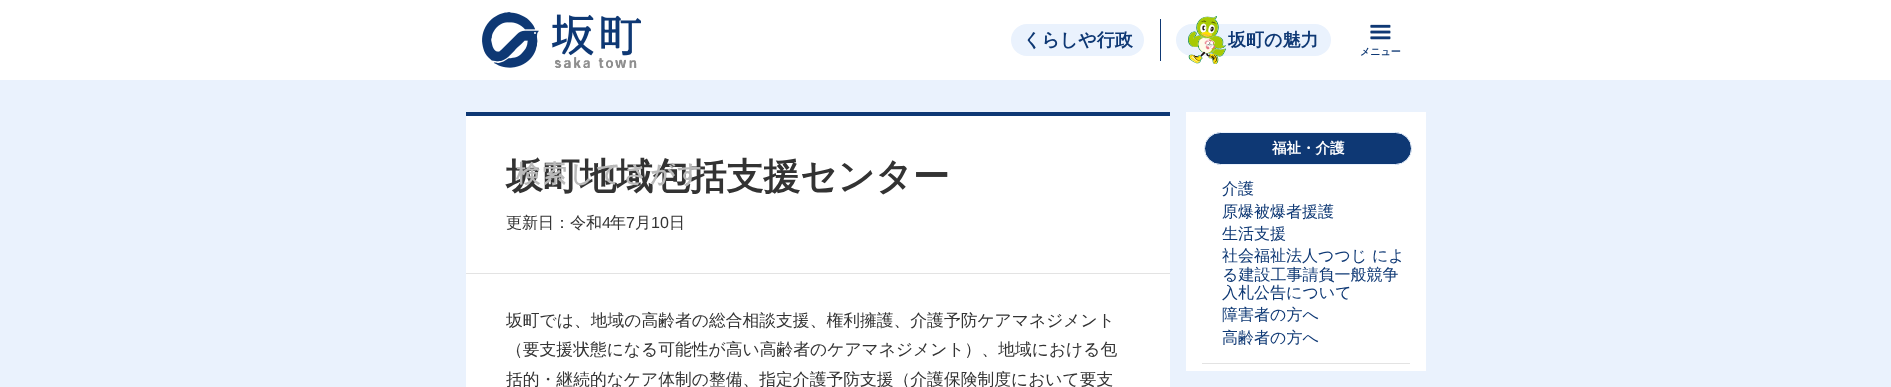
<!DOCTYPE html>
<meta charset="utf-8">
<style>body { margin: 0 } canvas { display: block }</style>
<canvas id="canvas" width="1891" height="387"></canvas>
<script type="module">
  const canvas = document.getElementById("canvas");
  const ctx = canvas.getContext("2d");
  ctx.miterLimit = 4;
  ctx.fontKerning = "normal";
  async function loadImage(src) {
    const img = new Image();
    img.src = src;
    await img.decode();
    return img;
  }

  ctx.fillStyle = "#eaf2fd";
  ctx.fillRect(0, 0, 1891, 387);
  ctx.fillStyle = "#ffffff";
  ctx.fillRect(0, 0, 1891, 80);
  ctx.drawImage(await loadImage("img1.png"), 482, 12, 159, 56);
  ctx.fillStyle = "#eaf2fd";
  ctx.beginPath();
  ctx.roundRect(1012, 25, 131, 30, 15);
  ctx.fill();
  ctx.strokeStyle = "#eaf2fd";
  ctx.lineWidth = 2;
  ctx.stroke();
  ctx.font = "bold 18px WenQuanYi Zen Hei";
  ctx.fillStyle = "#0e3874";
  ctx.fillText("くらしや行政", 1023, 46);
  ctx.fillRect(1160, 19, 1, 42);
  ctx.fillStyle = "#eaf2fd";
  ctx.beginPath();
  ctx.roundRect(1177, 25, 153, 30, 15);
  ctx.fill();
  ctx.stroke();
  ctx.drawImage(await loadImage("img2.png"), 1188, 16, 38, 48);
  ctx.fillStyle = "#0e3874";
  ctx.fillText("坂町の魅力", 1228, 46);
  ctx.drawImage(await loadImage("img3.png"), 1370, 24, 21, 16);
  ctx.font = "bold 10px WenQuanYi Zen Hei";
  ctx.fillText("メニュー", 1360, 55);
  ctx.fillStyle = "#ffffff";
  ctx.fillRect(466, 116, 704, 271);
  ctx.fillStyle = "#0e3874";
  ctx.fillRect(466, 112, 704, 4);
  ctx.font = "bold 36.75px WenQuanYi Zen Hei";
  ctx.fillStyle = "#333333";
  ctx.fillText("坂町地域包括支援センター", 506, 189);
  ctx.font = "500 16px WenQuanYi Zen Hei";
  ctx.fillText("更新日：令和", 506, 228);
  ctx.font = "16px Liberation Sans";
  ctx.fillText("4", 602, 228);
  ctx.font = "500 16px WenQuanYi Zen Hei";
  ctx.fillText("年", 610, 228);
  ctx.font = "16px Liberation Sans";
  ctx.fillText("7", 626, 228);
  ctx.font = "500 16px WenQuanYi Zen Hei";
  ctx.fillText("月", 635, 228);
  ctx.font = "16px Liberation Sans";
  ctx.fillText("10", 651, 228);
  ctx.font = "500 16px WenQuanYi Zen Hei";
  ctx.fillText("日", 669, 228);
  ctx.fillStyle = "#e3e3e3";
  ctx.fillRect(466, 273, 704, 1);
  ctx.font = "500 16.8px WenQuanYi Zen Hei";
  ctx.fillStyle = "#333333";
  ctx.fillText("坂町では、地域の高齢者の総合相談支援、権利擁護、介護予防ケアマネジメント", 506, 326);
  ctx.fillText("（要支援状態になる可能性が高い高齢者のケアマネジメント）、地域における包", 506, 355);
  ctx.fillText("括的・継続的なケア体制の整備、指定介護予防支援（介護保険制度において要支", 506, 385);
  ctx.fillStyle = "#ffffff";
  ctx.fillRect(1186, 112, 240, 259);
  ctx.fillStyle = "#0e3874";
  ctx.beginPath();
  ctx.roundRect(1204.5, 132.5, 207, 32, 16);
  ctx.fill();
  ctx.lineWidth = 1;
  ctx.stroke();
  ctx.font = "bold 14.5px WenQuanYi Zen Hei";
  ctx.fillStyle = "#ffffff";
  ctx.fillText("福祉・介護", 1272, 153);
  ctx.font = "500 16px WenQuanYi Zen Hei";
  ctx.fillStyle = "#0e3874";
  ctx.fillText("介護", 1222, 194);
  ctx.fillText("原爆被爆者援護", 1222, 217);
  ctx.fillText("生活支援", 1222, 239);
  ctx.fillText("社会福祉法人つつじ によ", 1222, 261);
  ctx.fillText("る建設工事請負一般競争", 1222, 280);
  ctx.fillText("入札公告について", 1222, 298);
  ctx.fillText("障害者の方へ", 1222, 320);
  ctx.fillText("高齢者の方へ", 1222, 343);
  ctx.fillStyle = "#e3e3e3";
  ctx.fillRect(1202, 363, 208, 1);
  ctx.letterSpacing = "2.5px";
  ctx.font = "bold 24px WenQuanYi Zen Hei";
  ctx.fillStyle = "#b9b9b9";
  ctx.fillText("検索してさがす", 516, 182);
</script>
